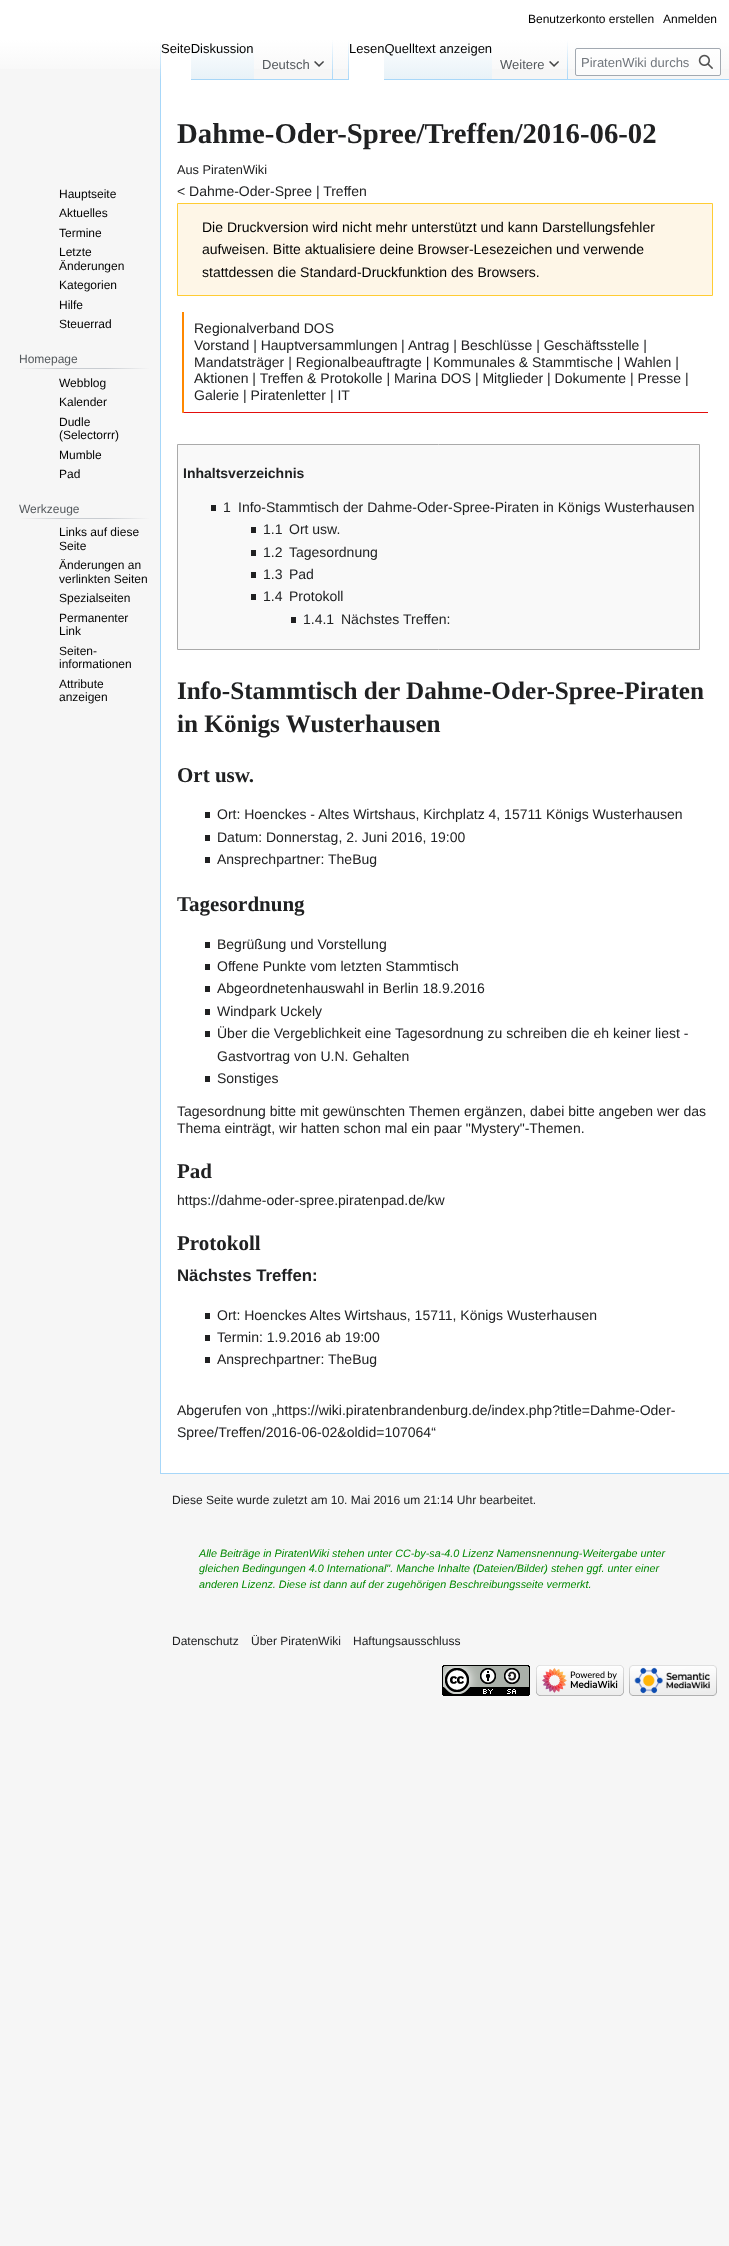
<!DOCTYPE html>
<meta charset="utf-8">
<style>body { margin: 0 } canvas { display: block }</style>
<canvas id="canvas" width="729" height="2246"></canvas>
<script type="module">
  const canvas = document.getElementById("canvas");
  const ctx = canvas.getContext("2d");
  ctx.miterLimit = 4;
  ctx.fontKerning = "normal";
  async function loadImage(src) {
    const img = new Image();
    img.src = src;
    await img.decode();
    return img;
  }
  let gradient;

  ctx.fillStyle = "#f6f6f6";
  ctx.fillRect(0, 0, 729, 2246);
  gradient = ctx.createLinearGradient(365, 0, 365, 80);
  gradient.addColorStop(0.5, "#ffffff");
  gradient.addColorStop(1, "#f6f6f6");
  ctx.fillStyle = gradient;
  ctx.fillRect(0, 0, 729, 69);
  ctx.font = "12px Liberation Sans";
  ctx.fillStyle = "#000000";
  ctx.fillText("Benutzerkonto erstellen", 528, 23);
  ctx.fillText("Anmelden", 663, 23);
  ctx.fillStyle = "#a7d7f9";
  ctx.fillRect(160, 1473, 569, 1);
  ctx.fillRect(160, 79, 1, 1395);
  gradient = ctx.createLinearGradient(161, 40, 161, 80);
  gradient.addColorStop(0, "rgba(167, 215, 249, 0)");
  gradient.addColorStop(1, "#a7d7f9");
  ctx.fillStyle = gradient;
  ctx.fillRect(160, 40, 1, 40);
  ctx.fillStyle = "#ffffff";
  ctx.fillRect(161, 51, 30, 29);
  gradient = ctx.createLinearGradient(223, 80, 223, 40);
  gradient.addColorStop(0, "#77c1f6");
  gradient.addColorStop(0.03, "#e8f2f8");
  gradient.addColorStop(1, "#ffffff");
  ctx.fillStyle = gradient;
  ctx.fillRect(191, 46, 63, 34);
  ctx.font = "13px Liberation Sans";
  ctx.fillStyle = "#000000";
  ctx.fillText("SeiteDiskussion", 161, 53);
  ctx.fillStyle = "#a7d7f9";
  ctx.fillRect(254, 79, 475, 1);
  gradient = ctx.createLinearGradient(333, 40, 333, 80);
  gradient.addColorStop(0, "rgba(167, 215, 249, 0)");
  gradient.addColorStop(1, "#a7d7f9");
  ctx.fillStyle = gradient;
  ctx.fillRect(332, 40, 1, 40);
  ctx.fillStyle = "#54595d";
  ctx.fillText("Deutsch", 262, 69);
  ctx.drawImage(await loadImage("img1.png"), 314, 61, 10, 6);
  gradient = ctx.createLinearGradient(349, 40, 349, 80);
  gradient.addColorStop(0, "rgba(167, 215, 249, 0)");
  gradient.addColorStop(1, "#a7d7f9");
  ctx.fillStyle = gradient;
  ctx.fillRect(348, 40, 1, 40);
  ctx.fillStyle = "#ffffff";
  ctx.fillRect(349, 51, 35, 29);
  gradient = ctx.createLinearGradient(438, 80, 438, 40);
  gradient.addColorStop(0, "#77c1f6");
  gradient.addColorStop(0.03, "#e8f2f8");
  gradient.addColorStop(1, "#ffffff");
  ctx.fillStyle = gradient;
  ctx.fillRect(384, 46, 108, 33);
  ctx.fillStyle = "#000000";
  ctx.fillText("LesenQuelltext anzeigen", 349, 53);
  gradient = ctx.createLinearGradient(568, 40, 568, 80);
  gradient.addColorStop(0, "rgba(167, 215, 249, 0)");
  gradient.addColorStop(1, "#a7d7f9");
  ctx.fillStyle = gradient;
  ctx.fillRect(567, 40, 1, 40);
  ctx.fillStyle = "#54595d";
  ctx.fillText("Weitere", 500, 69);
  ctx.drawImage(await loadImage("img1.png"), 549, 61, 10, 6);
  ctx.fillStyle = "rgba(255, 255, 255, 0.5)";
  ctx.beginPath();
  ctx.roundRect(575.5, 48.5, 145, 27, 1.5);
  ctx.fill();
  ctx.strokeStyle = "#a2a9b1";
  ctx.stroke();
  ctx.fillStyle = "#72777d";
  ctx.fillText("PiratenWiki durchs", 581, 67);
  ctx.drawImage(await loadImage("img2.png"), 698, 54, 15, 15);
  ctx.font = "12px Liberation Sans";
  ctx.fillStyle = "#000000";
  ctx.fillText("Hauptseite", 59, 198);
  ctx.fillText("Aktuelles", 59, 217);
  ctx.fillText("Termine", 59, 237);
  ctx.fillText("Letzte", 59, 256);
  ctx.fillText("Änderungen", 59, 270);
  ctx.fillText("Kategorien", 59, 289);
  ctx.fillText("Hilfe", 59, 309);
  ctx.fillText("Steuerrad", 59, 328);
  gradient = ctx.createLinearGradient(19, 369, 150, 369);
  gradient.addColorStop(0, "#f6f6f6");
  gradient.addColorStop(0.33, "#c8ccd1");
  gradient.addColorStop(0.66, "#c8ccd1");
  gradient.addColorStop(1, "#f6f6f6");
  ctx.fillStyle = gradient;
  ctx.fillRect(19, 368, 131, 1);
  ctx.fillStyle = "#54595d";
  ctx.fillText("Homepage", 19, 363);
  ctx.fillStyle = "#000000";
  ctx.fillText("Webblog", 59, 387);
  ctx.fillText("Kalender", 59, 406);
  ctx.fillText("Dudle", 59, 426);
  ctx.fillText("(Selectorrr)", 59, 439);
  ctx.fillText("Mumble", 59, 459);
  ctx.fillText("Pad", 59, 478);
  gradient = ctx.createLinearGradient(19, 519, 150, 519);
  gradient.addColorStop(0, "#f6f6f6");
  gradient.addColorStop(0.33, "#c8ccd1");
  gradient.addColorStop(0.66, "#c8ccd1");
  gradient.addColorStop(1, "#f6f6f6");
  ctx.fillStyle = gradient;
  ctx.fillRect(19, 518, 131, 1);
  ctx.fillStyle = "#54595d";
  ctx.fillText("Werkzeuge", 19, 513);
  ctx.fillStyle = "#000000";
  ctx.fillText("Links auf diese", 59, 536);
  ctx.fillText("Seite", 59, 550);
  ctx.fillText("Änderungen an", 59, 569);
  ctx.fillText("verlinkten Seiten", 59, 583);
  ctx.fillText("Spezialseiten", 59, 602);
  ctx.fillText("Permanenter", 59, 622);
  ctx.fillText("Link", 59, 635);
  ctx.fillText("Seiten-", 59, 655);
  ctx.fillText("informationen", 59, 668);
  ctx.fillText("Attribute", 59, 688);
  ctx.fillText("anzeigen", 59, 701);
  ctx.fillStyle = "#ffffff";
  ctx.fillRect(161, 80, 568, 1393);
  ctx.font = "bold 28.75px Liberation Serif";
  ctx.fillStyle = "#202122";
  ctx.fillText("Dahme-Oder-Spree/Treffen/2016-06-02", 177, 143);
  ctx.font = "12.75px Liberation Sans";
  ctx.fillText("Aus PiratenWiki", 177, 174);
  ctx.font = "14px Liberation Sans";
  ctx.fillText("< Dahme-Oder-Spree | Treffen", 177, 196);
  ctx.fillStyle = "#fef6e7";
  ctx.beginPath();
  ctx.rect(177.5, 203.5, 535, 92);
  ctx.fill();
  ctx.strokeStyle = "#ffcc33";
  ctx.stroke();
  ctx.fillStyle = "#000000";
  ctx.fillText("Die Druckversion wird nicht mehr unterstützt und kann Darstellungsfehler", 202, 232);
  ctx.fillText("aufweisen. Bitte aktualisiere deine Browser-Lesezeichen und verwende", 202, 254);
  ctx.fillText("stattdessen die Standard-Druckfunktion des Browsers.", 202, 277);
  ctx.fillStyle = "#e30e0d";
  ctx.beginPath();
  ctx.moveTo(708, 413);
  ctx.lineTo(182, 413);
  ctx.lineTo(184, 412);
  ctx.lineTo(708, 412);
  ctx.closePath();
  ctx.fill();
  ctx.fillStyle = "#ff8800";
  ctx.beginPath();
  ctx.moveTo(182, 413);
  ctx.lineTo(182, 312);
  ctx.lineTo(184, 312);
  ctx.lineTo(184, 412);
  ctx.closePath();
  ctx.fill();
  ctx.fillStyle = "#202122";
  ctx.fillText("Regionalverband DOS", 194, 333);
  ctx.fillText("Vorstand | Hauptversammlungen", 194, 350);
  ctx.fillText("|", 401, 350);
  ctx.fillText("Antrag | Beschlüsse | Geschäftsstelle |", 408, 350);
  ctx.fillText("Mandatsträger | Regionalbeauftragte | Kommunales & Stammtische | Wahlen |", 194, 367);
  ctx.fillText("Aktionen | Treffen & Protokolle | Marina DOS | Mitglieder | Dokumente | Presse |", 194, 383);
  ctx.fillText("Galerie | Piratenletter | IT", 194, 400);
  ctx.fillStyle = "#f9f9f9";
  ctx.beginPath();
  ctx.rect(177.5, 444.5, 522, 205);
  ctx.fill();
  ctx.strokeStyle = "#aaaaaa";
  ctx.stroke();
  ctx.font = "bold 14px Liberation Sans";
  ctx.fillStyle = "#202122";
  ctx.fillText("Inhaltsverzeichnis", 183, 478);
  ctx.fillRect(211, 505, 5, 6);
  ctx.font = "14px Liberation Sans";
  ctx.fillText("1", 223, 512);
  ctx.fillText("Info-Stammtisch der Dahme-Oder-Spree-Piraten in Königs Wusterhausen", 238, 512);
  ctx.fillRect(251, 527, 5, 6);
  ctx.fillText("1.1", 263, 534);
  ctx.fillText("Ort usw.", 289, 534);
  ctx.fillRect(251, 550, 5, 6);
  ctx.fillText("1.2", 263, 557);
  ctx.fillText("Tagesordnung", 289, 557);
  ctx.fillRect(251, 572, 5, 6);
  ctx.fillText("1.3", 263, 579);
  ctx.fillText("Pad", 289, 579);
  ctx.fillRect(251, 594, 5, 6);
  ctx.fillText("1.4", 263, 601);
  ctx.fillText("Protokoll", 289, 601);
  ctx.fillRect(291, 617, 5, 6);
  ctx.fillText("1.4.1", 303, 624);
  ctx.fillText("Nächstes Treffen:", 341, 624);
  ctx.font = "bold 25.2px Liberation Serif";
  ctx.fillText("Info-Stammtisch der Dahme-Oder-Spree-Piraten", 177, 699);
  ctx.fillText("in Königs Wusterhausen", 177, 732);
  ctx.font = "bold 21px Liberation Serif";
  ctx.fillText("Ort usw.", 177, 782);
  ctx.fillRect(205, 812, 5, 6);
  ctx.font = "14px Liberation Sans";
  ctx.fillText("Ort: Hoenckes - Altes Wirtshaus, Kirchplatz 4, 15711 Königs Wusterhausen", 217, 819);
  ctx.fillRect(205, 835, 5, 6);
  ctx.fillText("Datum: Donnerstag, 2. Juni 2016, 19:00", 217, 842);
  ctx.fillRect(205, 857, 5, 6);
  ctx.fillText("Ansprechpartner: TheBug", 217, 864);
  ctx.font = "bold 21px Liberation Serif";
  ctx.fillText("Tagesordnung", 177, 911);
  ctx.fillRect(205, 942, 5, 6);
  ctx.font = "14px Liberation Sans";
  ctx.fillText("Begrüßung und Vorstellung", 217, 949);
  ctx.fillRect(205, 964, 5, 6);
  ctx.fillText("Offene Punkte vom letzten Stammtisch", 217, 971);
  ctx.fillRect(205, 986, 5, 6);
  ctx.fillText("Abgeordnetenhauswahl in Berlin 18.9.2016", 217, 993);
  ctx.fillRect(205, 1009, 5, 6);
  ctx.fillText("Windpark Uckely", 217, 1016);
  ctx.fillRect(205, 1031, 5, 6);
  ctx.fillText("Über die Vergeblichkeit eine Tagesordnung zu schreiben die eh keiner liest -", 217, 1038);
  ctx.fillText("Gastvortrag von U.N. Gehalten", 217, 1061);
  ctx.fillRect(205, 1076, 5, 6);
  ctx.fillText("Sonstiges", 217, 1083);
  ctx.fillText("Tagesordnung bitte mit gewünschten Themen ergänzen, dabei bitte angeben wer das", 177, 1116);
  ctx.fillText("Thema einträgt, wir hatten schon mal ein paar \"Mystery\"-Themen.", 177, 1133);
  ctx.font = "bold 21px Liberation Serif";
  ctx.fillText("Pad", 177, 1178);
  ctx.font = "14px Liberation Sans";
  ctx.fillText("https://dahme-oder-spree.piratenpad.de/kw", 177, 1205);
  ctx.font = "bold 21px Liberation Serif";
  ctx.fillText("Protokoll", 177, 1250);
  ctx.font = "bold 16.75px Liberation Sans";
  ctx.fillText("Nächstes Treffen:", 177, 1281);
  ctx.fillRect(205, 1313, 5, 6);
  ctx.font = "14px Liberation Sans";
  ctx.fillText("Ort: Hoenckes Altes Wirtshaus, 15711, Königs Wusterhausen", 217, 1320);
  ctx.fillRect(205, 1335, 5, 6);
  ctx.fillText("Termin: 1.9.2016 ab 19:00", 217, 1342);
  ctx.fillRect(205, 1357, 5, 6);
  ctx.fillText("Ansprechpartner: TheBug", 217, 1364);
  ctx.fillText("Abgerufen von „https://wiki.piratenbrandenburg.de/index.php?title=Dahme-Oder-", 177, 1415);
  ctx.fillText("Spree/Treffen/2016-06-02&oldid=107064“", 177, 1437);
  ctx.font = "12px Liberation Sans";
  ctx.fillText("Diese Seite wurde zuletzt am 10. Mai 2016 um 21:14 Uhr bearbeitet.", 172, 1504);
  ctx.font = "italic 10.8px Liberation Sans";
  ctx.fillStyle = "#008800";
  ctx.fillText("Alle Beiträge in PiratenWiki stehen unter CC-by-sa-4.0 Lizenz Namensnennung-Weitergabe unter", 199, 1557);
  ctx.fillText("gleichen Bedingungen 4.0 International\". Manche Inhalte (Dateien/Bilder) stehen ggf. unter einer", 199, 1572);
  ctx.fillText("anderen Lizenz. Diese ist dann auf der zugehörigen Beschreibungsseite vermerkt.", 199, 1588);
  ctx.font = "12px Liberation Sans";
  ctx.fillStyle = "#202122";
  ctx.fillText("Datenschutz", 172, 1645);
  ctx.fillText("Über PiratenWiki", 251, 1645);
  ctx.fillText("Haftungsausschluss", 353, 1645);
  ctx.drawImage(await loadImage("img3.png"), 442, 1665, 88, 31);
  ctx.drawImage(await loadImage("img4.png"), 536, 1665, 88, 31);
  ctx.drawImage(await loadImage("img5.png"), 629, 1665, 88, 31);
</script>
